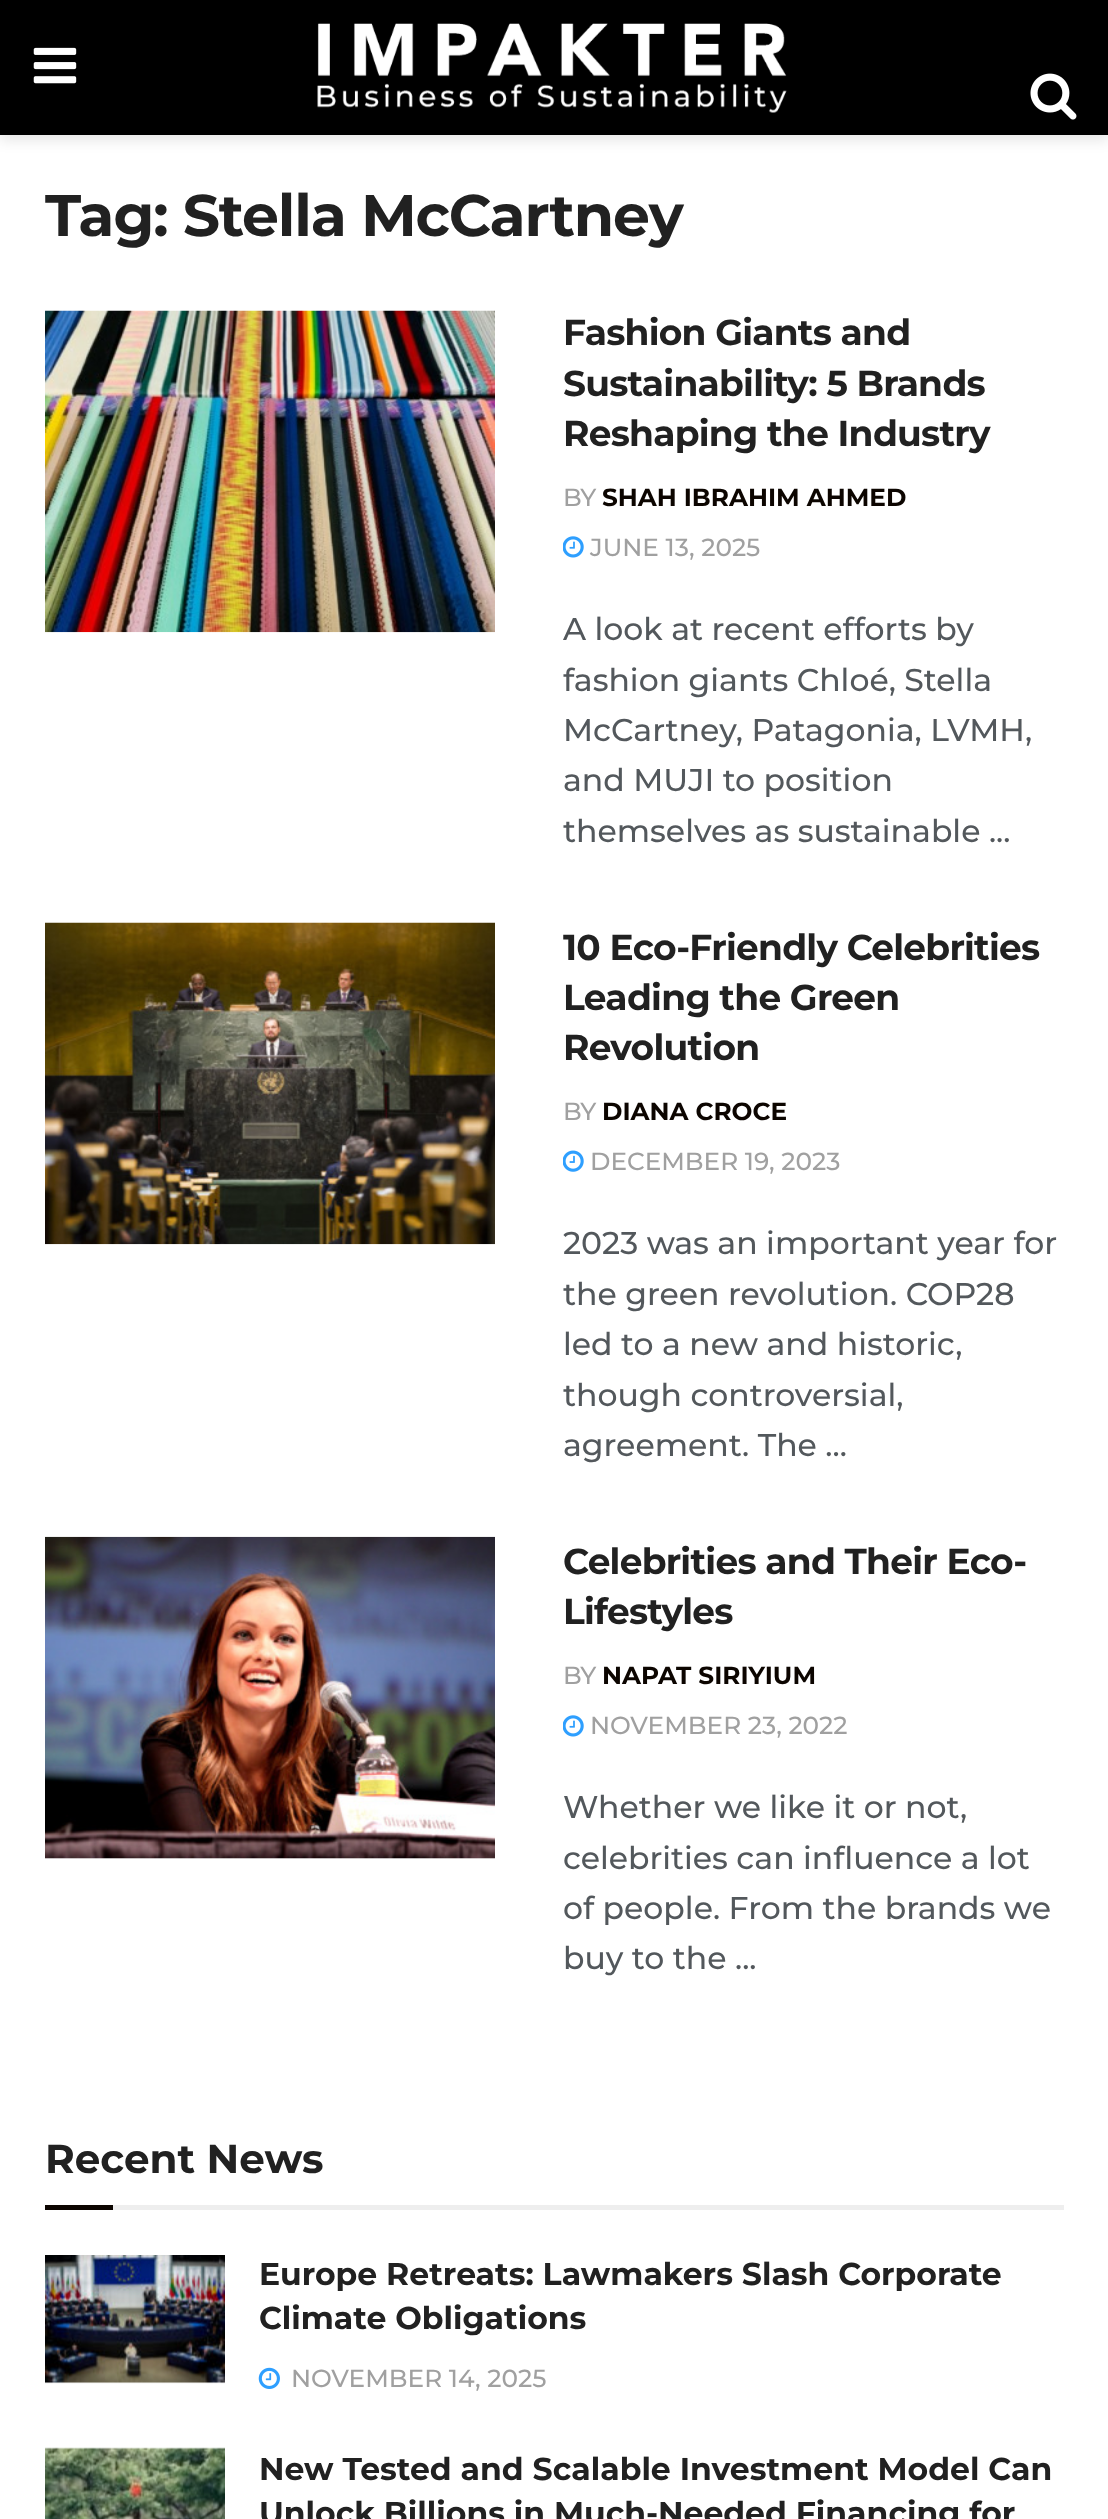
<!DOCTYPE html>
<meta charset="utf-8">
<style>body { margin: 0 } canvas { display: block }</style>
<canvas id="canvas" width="1108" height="2519"></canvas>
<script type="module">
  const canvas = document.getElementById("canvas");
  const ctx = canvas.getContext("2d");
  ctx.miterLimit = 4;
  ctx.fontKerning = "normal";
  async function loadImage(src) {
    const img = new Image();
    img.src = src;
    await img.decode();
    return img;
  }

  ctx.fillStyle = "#ffffff";
  ctx.fillRect(0, 0, 1108, 2519);
  ctx.fillStyle = "rgba(0, 0, 0, 0.1)";
  ctx.filter = "blur(7px)";
  ctx.beginPath();
  ctx.rect(0, 5, 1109, 135);
  ctx.fill();
  ctx.filter = "none";
  ctx.fillStyle = "#000000";
  ctx.fillRect(0, 0, 1108, 135);
  ctx.drawImage(await loadImage("img1.png"), 33, 47, 44, 37);
  ctx.drawImage(await loadImage("img2.png"), 317, 23, 470, 90);
  ctx.drawImage(await loadImage("img3.png"), 1030, 73, 47, 47);
  ctx.letterSpacing = "-1.2px";
  ctx.font = "bold 58.5px Montserrat";
  ctx.fillStyle = "#212121";
  ctx.fillText("Tag: Stella McCartney", 45, 236);
  ctx.drawImage(await loadImage("img4.png"), 45, 310, 450, 323);
  ctx.letterSpacing = "-0.75px";
  ctx.font = "bold 36px Montserrat";
  ctx.fillText("Fashion Giants and", 563, 345);
  ctx.fillText("Sustainability: 5 Brands", 563, 396);
  ctx.fillText("Reshaping the Industry", 563, 446);
  ctx.letterSpacing = "0px";
  ctx.font = "500 24.75px Montserrat";
  ctx.fillStyle = "#a0a0a0";
  ctx.fillText("BY", 563, 506);
  ctx.font = "bold 24.75px Montserrat";
  ctx.fillStyle = "#0c0500";
  ctx.fillText("SHAH IBRAHIM AHMED", 602, 506);
  ctx.drawImage(await loadImage("img5.png"), 563, 536, 21, 22);
  ctx.font = "500 24.75px Montserrat";
  ctx.fillStyle = "#a0a0a0";
  ctx.fillText("JUNE 13, 2025", 590, 556);
  ctx.font = "500 31.5px Montserrat";
  ctx.fillStyle = "#53585c";
  ctx.fillText("A look at recent efforts by", 563, 640);
  ctx.fillText("fashion giants Chloé, Stella", 563, 691);
  ctx.fillText("McCartney, Patagonia, LVMH,", 563, 741);
  ctx.fillText("and MUJI to position", 563, 791);
  ctx.fillText("themselves as sustainable ...", 563, 842);
  ctx.drawImage(await loadImage("img6.png"), 45, 922, 450, 323);
  ctx.save();
  ctx.beginPath();
  ctx.rect(563, 923, 501, 546);
  ctx.clip();
  ctx.letterSpacing = "-0.75px";
  ctx.font = "bold 36px Montserrat";
  ctx.fillStyle = "#212121";
  ctx.fillText("10 Eco-Friendly Celebrities", 563, 960);
  ctx.restore();
  ctx.letterSpacing = "-0.75px";
  ctx.font = "bold 36px Montserrat";
  ctx.fillStyle = "#212121";
  ctx.fillText("Leading the Green", 563, 1010);
  ctx.fillText("Revolution", 563, 1060);
  ctx.letterSpacing = "0px";
  ctx.font = "500 24.75px Montserrat";
  ctx.fillStyle = "#a0a0a0";
  ctx.fillText("BY", 563, 1120);
  ctx.font = "bold 24.75px Montserrat";
  ctx.fillStyle = "#0c0500";
  ctx.fillText("DIANA CROCE", 602, 1120);
  ctx.drawImage(await loadImage("img7.png"), 563, 1150, 21, 22);
  ctx.font = "500 24.75px Montserrat";
  ctx.fillStyle = "#a0a0a0";
  ctx.fillText("DECEMBER 19, 2023", 590, 1170);
  ctx.font = "500 31.5px Montserrat";
  ctx.fillStyle = "#53585c";
  ctx.fillText("2023 was an important year for", 563, 1254);
  ctx.fillText("the green revolution. COP28", 563, 1305);
  ctx.fillText("led to a new and historic,", 563, 1355);
  ctx.fillText("though controversial,", 563, 1406);
  ctx.fillText("agreement. The ...", 563, 1456);
  ctx.fillStyle = "#f7f7f7";
  ctx.fillRect(45, 1858, 450, 1);
  ctx.drawImage(await loadImage("img8.png"), 45, 1536, 450, 323);
  ctx.letterSpacing = "-0.75px";
  ctx.font = "bold 36px Montserrat";
  ctx.fillStyle = "#212121";
  ctx.fillText("Celebrities and Their Eco-", 563, 1574);
  ctx.fillText("Lifestyles", 563, 1624);
  ctx.letterSpacing = "0px";
  ctx.font = "500 24.75px Montserrat";
  ctx.fillStyle = "#a0a0a0";
  ctx.fillText("BY", 563, 1684);
  ctx.font = "bold 24.75px Montserrat";
  ctx.fillStyle = "#0c0500";
  ctx.fillText("NAPAT SIRIYIUM", 602, 1684);
  ctx.drawImage(await loadImage("img5.png"), 563, 1715, 21, 22);
  ctx.font = "500 24.75px Montserrat";
  ctx.fillStyle = "#a0a0a0";
  ctx.fillText("NOVEMBER 23, 2022", 590, 1734);
  ctx.font = "500 31.5px Montserrat";
  ctx.fillStyle = "#53585c";
  ctx.fillText("Whether we like it or not,", 563, 1818);
  ctx.fillText("celebrities can influence a lot", 563, 1869);
  ctx.fillText("of people. From the brands we", 563, 1919);
  ctx.fillText("buy to the ...", 563, 1969);
  ctx.fillStyle = "#eeeeee";
  ctx.fillRect(113, 2205, 951, 5);
  ctx.font = "bold 40.5px Montserrat";
  ctx.fillStyle = "#212121";
  ctx.fillText("Recent News", 45, 2173);
  ctx.fillStyle = "#0c0500";
  ctx.fillRect(45, 2205, 68, 5);
  ctx.fillStyle = "#f7f7f7";
  ctx.fillRect(45, 2382, 180, 1);
  ctx.drawImage(await loadImage("img9.png"), 45, 2255, 180, 129);
  ctx.font = "bold 31.5px Montserrat";
  ctx.fillStyle = "#212121";
  ctx.fillText("Europe Retreats: Lawmakers Slash Corporate", 259, 2285);
  ctx.fillText("Climate Obligations", 259, 2329);
  ctx.drawImage(await loadImage("img10.png"), 258, 2367, 22, 22);
  ctx.font = "500 24.75px Montserrat";
  ctx.fillStyle = "#a0a0a0";
  ctx.fillText("NOVEMBER 14, 2025", 291, 2387);
  ctx.fillStyle = "#f7f7f7";
  ctx.fillRect(45, 2448, 180, 1);
  ctx.drawImage(await loadImage("img11.png"), 45, 2447, 180, 72);
  ctx.font = "bold 31.5px Montserrat";
  ctx.fillStyle = "#212121";
  ctx.fillText("New Tested and Scalable Investment Model Can", 259, 2480);
  ctx.fillText("Unlock Billions in Much-Needed Financing for", 259, 2524);
</script>
